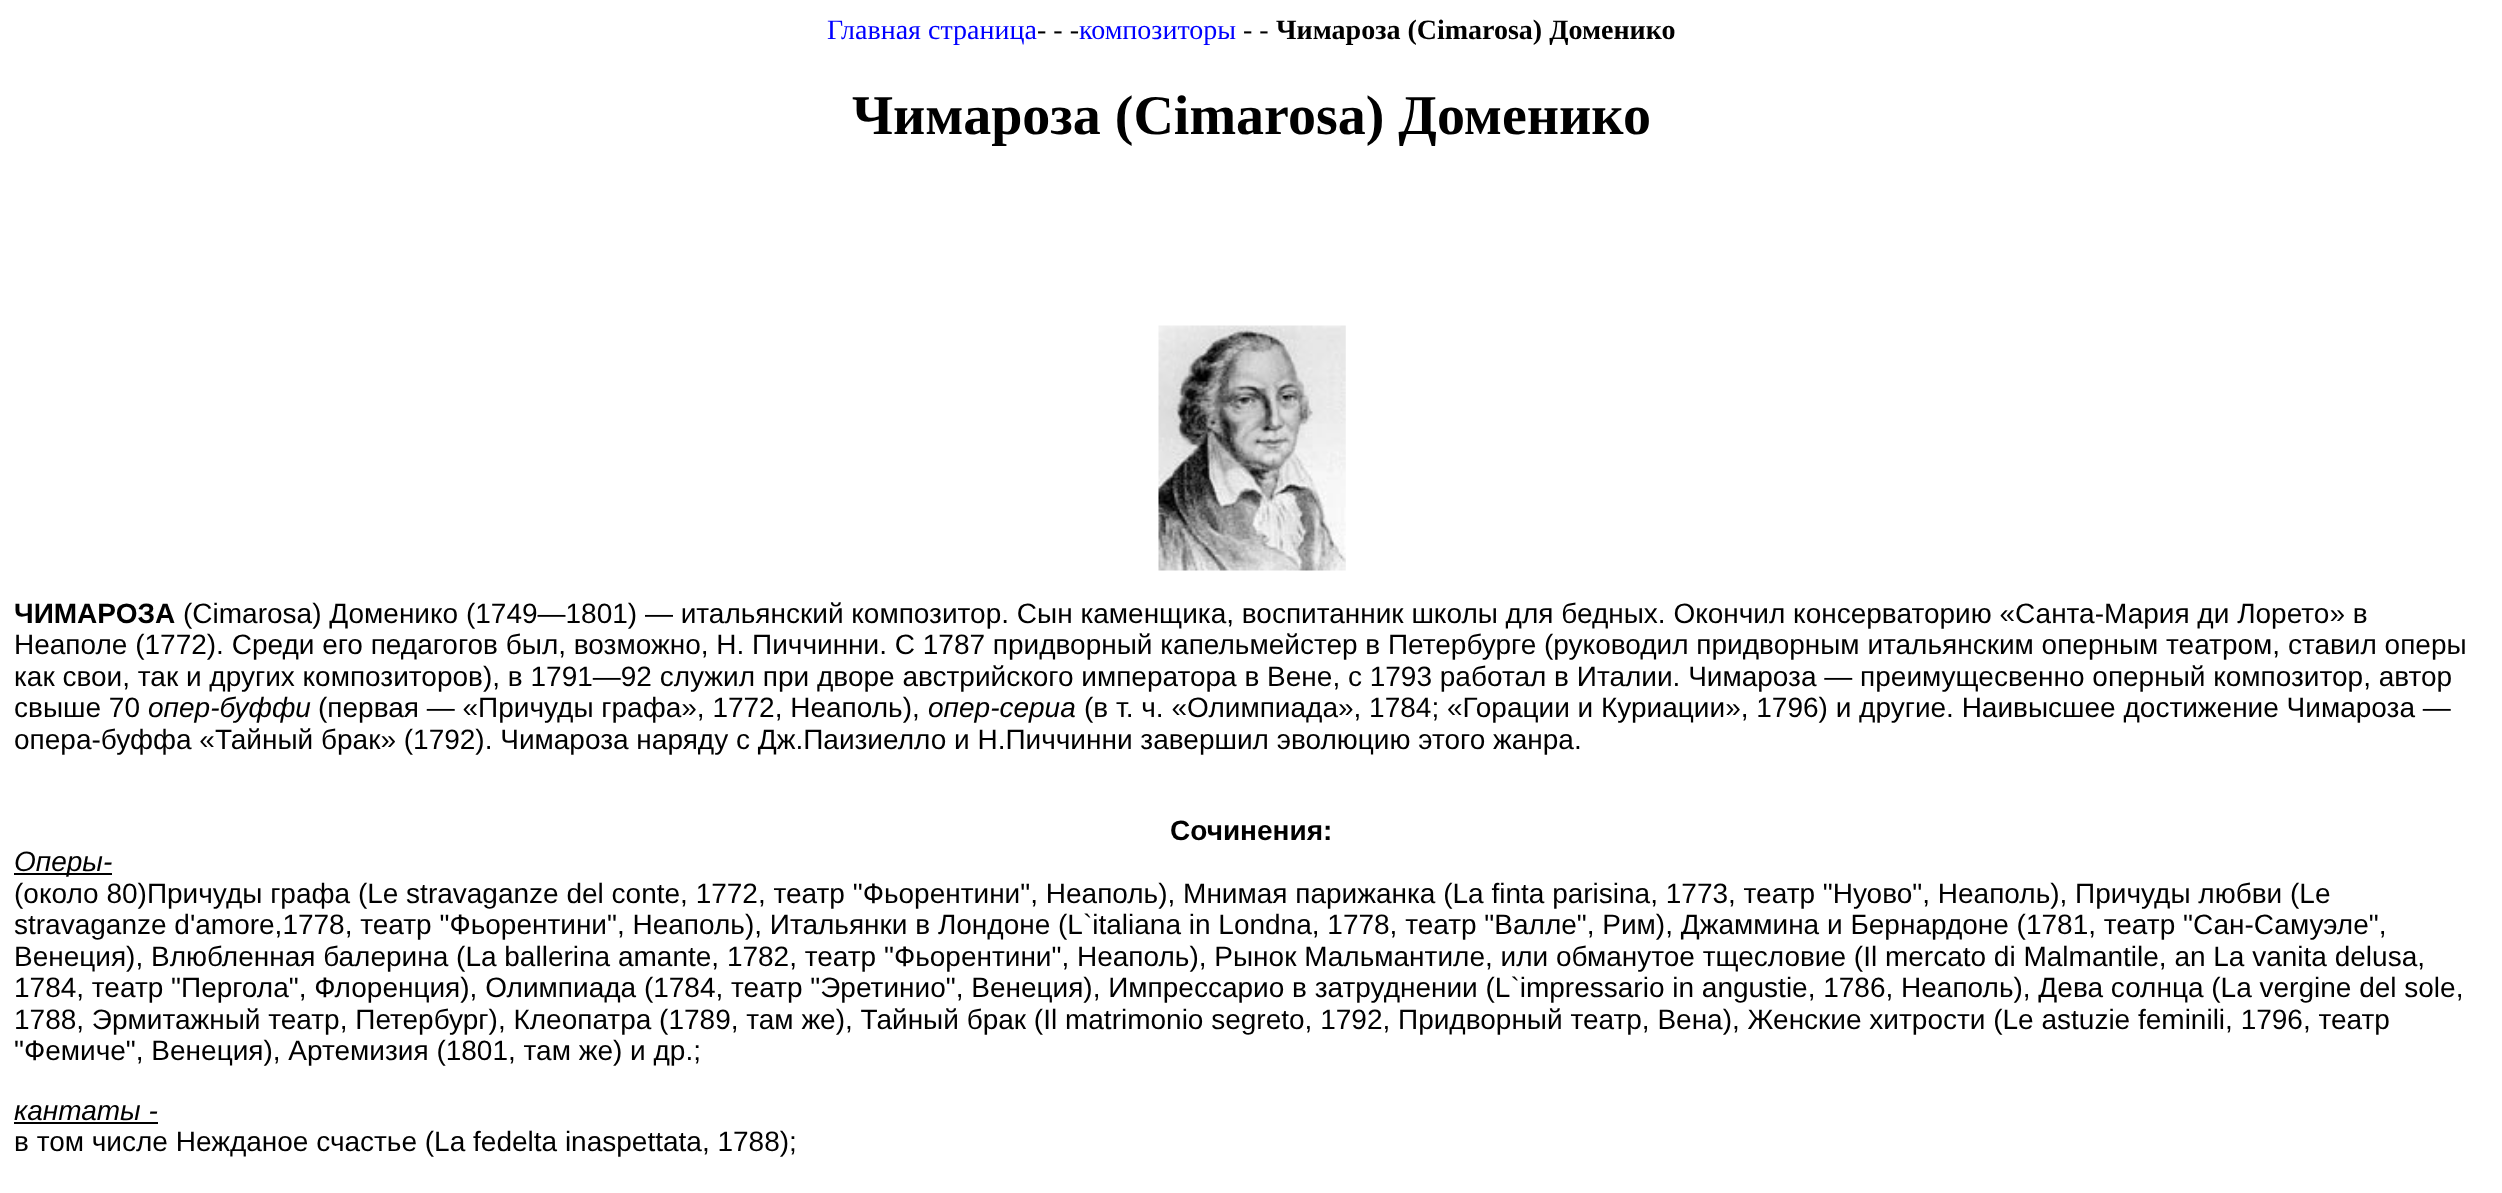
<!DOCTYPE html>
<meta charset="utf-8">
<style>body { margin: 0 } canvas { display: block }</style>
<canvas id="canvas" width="2502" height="1193"></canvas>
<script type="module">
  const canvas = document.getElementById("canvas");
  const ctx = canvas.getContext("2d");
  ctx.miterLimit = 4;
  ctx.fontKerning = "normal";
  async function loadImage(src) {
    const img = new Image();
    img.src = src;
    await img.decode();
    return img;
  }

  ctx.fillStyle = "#ffffff";
  ctx.fillRect(0, 0, 2502, 1193);
  ctx.font = "28px Liberation Serif";
  ctx.fillStyle = "#0000ff";
  ctx.fillText("Главная страница", 827, 39);
  ctx.fillStyle = "#000000";
  ctx.fillText("- - -", 1037, 39);
  ctx.fillStyle = "#0000ff";
  ctx.fillText("композиторы", 1079, 39);
  ctx.fillStyle = "#000000";
  ctx.fillText("- -", 1243, 39);
  ctx.font = "bold 28px Liberation Serif";
  ctx.fillText("Чимароза (Cimarosa) Доменико", 1276, 39);
  ctx.font = "bold 56px Liberation Serif";
  ctx.fillText("Чимароза (Cimarosa) Доменико", 852, 134);
  ctx.drawImage(await loadImage("img1.png"), 1158, 325, 188, 246);
  ctx.font = "bold 28px Liberation Sans";
  ctx.fillText("ЧИМАРОЗА", 14, 623);
  ctx.font = "28px Liberation Sans";
  ctx.fillText("(Cimarosa) Доменико (1749—1801) — итальянский композитор. Сын каменщика, воспитанник школы для бедных. Окончил консерваторию «Санта-Мария ди Лорето» в", 183, 623);
  ctx.fillText("Неаполе (1772). Среди его педагогов был, возможно, Н. Пиччинни. С 1787 придворный капельмейстер в Петербурге (руководил придворным итальянским оперным театром, ставил оперы", 14, 654);
  ctx.fillText("как свои, так и других композиторов), в 1791—92 служил при дворе австрийского императора в Вене, с 1793 работал в Италии. Чимароза — преимущесвенно оперный композитор, автор", 14, 686);
  ctx.fillText("свыше 70", 14, 717);
  ctx.font = "italic 28px Liberation Sans";
  ctx.fillText("опер-буффи", 148, 717);
  ctx.font = "28px Liberation Sans";
  ctx.fillText("(первая — «Причуды графа», 1772, Неаполь),", 318, 717);
  ctx.font = "italic 28px Liberation Sans";
  ctx.fillText("опер-сериа", 928, 717);
  ctx.font = "28px Liberation Sans";
  ctx.fillText("(в т. ч. «Олимпиада», 1784; «Горации и Куриации», 1796) и другие. Наивысшее достижение Чимароза —", 1084, 717);
  ctx.fillText("опера-буффа «Тайный брак» (1792). Чимароза наряду с Дж.Паизиелло и Н.Пиччинни завершил эволюцию этого жанра.", 14, 749);
  ctx.font = "bold 28px Liberation Sans";
  ctx.fillText("Сочинения:", 1170, 840);
  ctx.fillRect(14, 873, 98, 2);
  ctx.font = "italic 28px Liberation Sans";
  ctx.fillText("Оперы-", 14, 871);
  ctx.font = "28px Liberation Sans";
  ctx.fillText("(около 80)Причуды графа (Le stravaganze del conte, 1772, театр \"Фьорентини\", Неаполь), Мнимая парижанка (La finta parisina, 1773, театр \"Нуово\", Неаполь), Причуды любви (Le", 14, 903);
  ctx.fillText("stravaganze d'amore,1778, театр \"Фьорентини\", Неаполь), Итальянки в Лондоне (L`italiana in Londna, 1778, театр \"Валле\", Рим), Джаммина и Бернардоне (1781, театр \"Сан-Самуэле\",", 14, 934);
  ctx.fillText("Венеция), Влюбленная балерина (La ballerina amante, 1782, театр \"Фьорентини\", Неаполь), Рынок Мальмантиле, или обманутое тщесловие (Il mercato di Malmantile, an La vanita delusa,", 14, 966);
  ctx.fillText("1784, театр \"Пергола\", Флоренция), Олимпиада (1784, театр \"Эретинио\", Венеция), Импрессарио в затруднении (L`impressario in angustie, 1786, Неаполь), Дева солнца (La vergine del sole,", 14, 997);
  ctx.fillText("1788, Эрмитажный театр, Петербург), Клеопатра (1789, там же), Тайный брак (Il matrimonio segreto, 1792, Придворный театр, Вена), Женские хитрости (Le astuzie feminili, 1796, театр", 14, 1029);
  ctx.fillText("\"Фемиче\", Венеция), Артемизия (1801, там же) и др.;", 14, 1060);
  ctx.font = "italic 28px Liberation Sans";
  ctx.fillText("кантаты -", 14, 1120);
  ctx.fillRect(14, 1122, 144, 2);
  ctx.font = "28px Liberation Sans";
  ctx.fillText("в том числе Нежданое счастье (La fedelta inaspettata, 1788);", 14, 1151);
</script>
